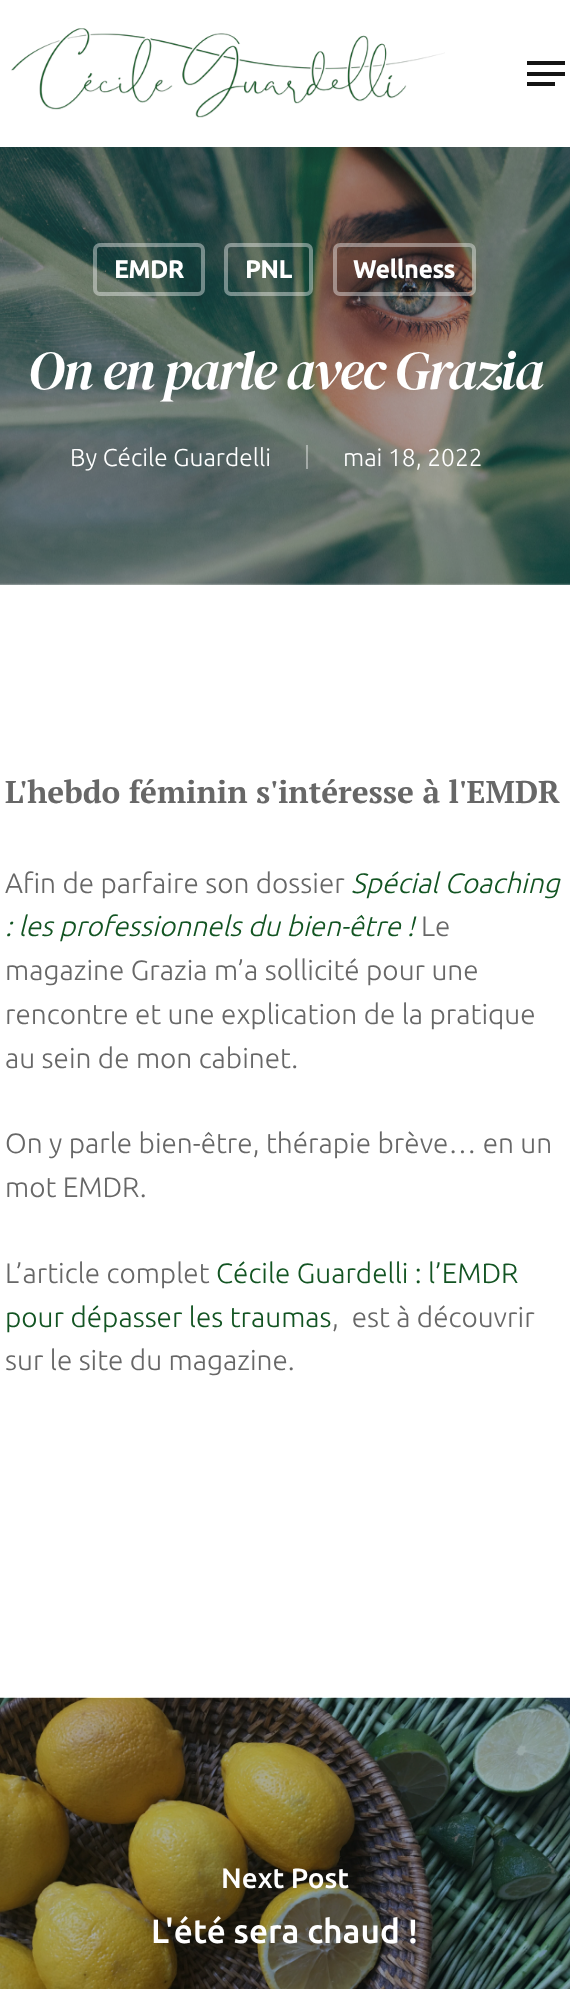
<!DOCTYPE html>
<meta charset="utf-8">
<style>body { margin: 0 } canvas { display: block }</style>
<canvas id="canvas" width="570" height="1989"></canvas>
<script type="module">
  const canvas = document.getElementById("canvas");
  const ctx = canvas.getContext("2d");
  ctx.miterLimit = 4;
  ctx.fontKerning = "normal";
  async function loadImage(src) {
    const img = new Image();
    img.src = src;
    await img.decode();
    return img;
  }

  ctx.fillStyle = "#ffffff";
  ctx.fillRect(0, 0, 570, 1989);
  ctx.drawImage(await loadImage("img1.png"), 11, 28, 434, 90);
  ctx.fillStyle = "#141414";
  ctx.fillRect(527, 61, 38, 4);
  ctx.fillRect(527, 82, 28, 4);
  ctx.fillRect(527, 72, 38, 4);
  ctx.drawImage(await loadImage("img2.png"), 0, 147, 570, 438);
  ctx.beginPath();
  ctx.roundRect(95, 245, 108, 49, 5);
  ctx.strokeStyle = "rgba(255, 255, 255, 0.4)";
  ctx.lineWidth = 4;
  ctx.stroke();
  ctx.font = "bold 24.5px Ubuntu";
  ctx.fillStyle = "#ffffff";
  ctx.fillText("EMDR", 114, 278);
  ctx.beginPath();
  ctx.roundRect(226, 245, 85, 49, 5);
  ctx.stroke();
  ctx.fillText("PNL", 245, 278);
  ctx.beginPath();
  ctx.roundRect(335, 245, 139, 49, 5);
  ctx.stroke();
  ctx.fillText("Wellness", 353, 278);
  ctx.letterSpacing = "-1.75px";
  ctx.font = "italic 54.5px DM Serif Display";
  ctx.fillText("On en parle avec Grazia", 28, 389);
  ctx.letterSpacing = "0px";
  ctx.font = "300 24.5px Ubuntu";
  ctx.fillText("By Cécile Guardelli", 70, 466);
  ctx.fillStyle = "rgba(255, 255, 255, 0.4)";
  ctx.fillRect(306, 445, 2, 24);
  ctx.fillStyle = "#ffffff";
  ctx.fillText("mai 18, 2022", 343, 466);
  ctx.font = "bold 31.5px PT Serif";
  ctx.fillStyle = "#676767";
  ctx.fillText("L'hebdo féminin s'intéresse à l'EMDR", 5, 803);
  ctx.font = "300 28px Ubuntu";
  ctx.fillText("Afin de parfaire son dossier", 5, 893);
  ctx.font = "italic 300 28px Ubuntu";
  ctx.fillStyle = "#125422";
  ctx.fillText("Spécial Coaching", 351, 893);
  ctx.fillText(": les professionnels du bien-être !", 5, 936);
  ctx.font = "300 28px Ubuntu";
  ctx.fillStyle = "#676767";
  ctx.fillText("Le", 421, 936);
  ctx.fillText("magazine Grazia m’a sollicité pour une", 5, 980);
  ctx.fillText("rencontre et une explication de la pratique", 5, 1024);
  ctx.fillText("au sein de mon cabinet.", 5, 1068);
  ctx.fillText("On y parle bien-être, thérapie brève… en un", 5, 1153);
  ctx.fillText("mot EMDR.", 5, 1197);
  ctx.fillText("L’article complet", 5, 1283);
  ctx.fillStyle = "#125422";
  ctx.fillText("Cécile Guardelli : l’EMDR", 216, 1283);
  ctx.fillText("pour dépasser les traumas", 5, 1327);
  ctx.fillStyle = "#676767";
  ctx.fillText(",  est à découvrir", 332, 1327);
  ctx.fillText("sur le site du magazine.", 5, 1370);
  ctx.drawImage(await loadImage("img3.png"), 0, 1697, 570, 292);
  ctx.font = "500 28px Ubuntu";
  ctx.fillStyle = "#ffffff";
  ctx.fillText("Next Post", 221, 1888);
  ctx.font = "500 33.5px Ubuntu";
  ctx.fillText("L'été sera chaud !", 151, 1943);
</script>
